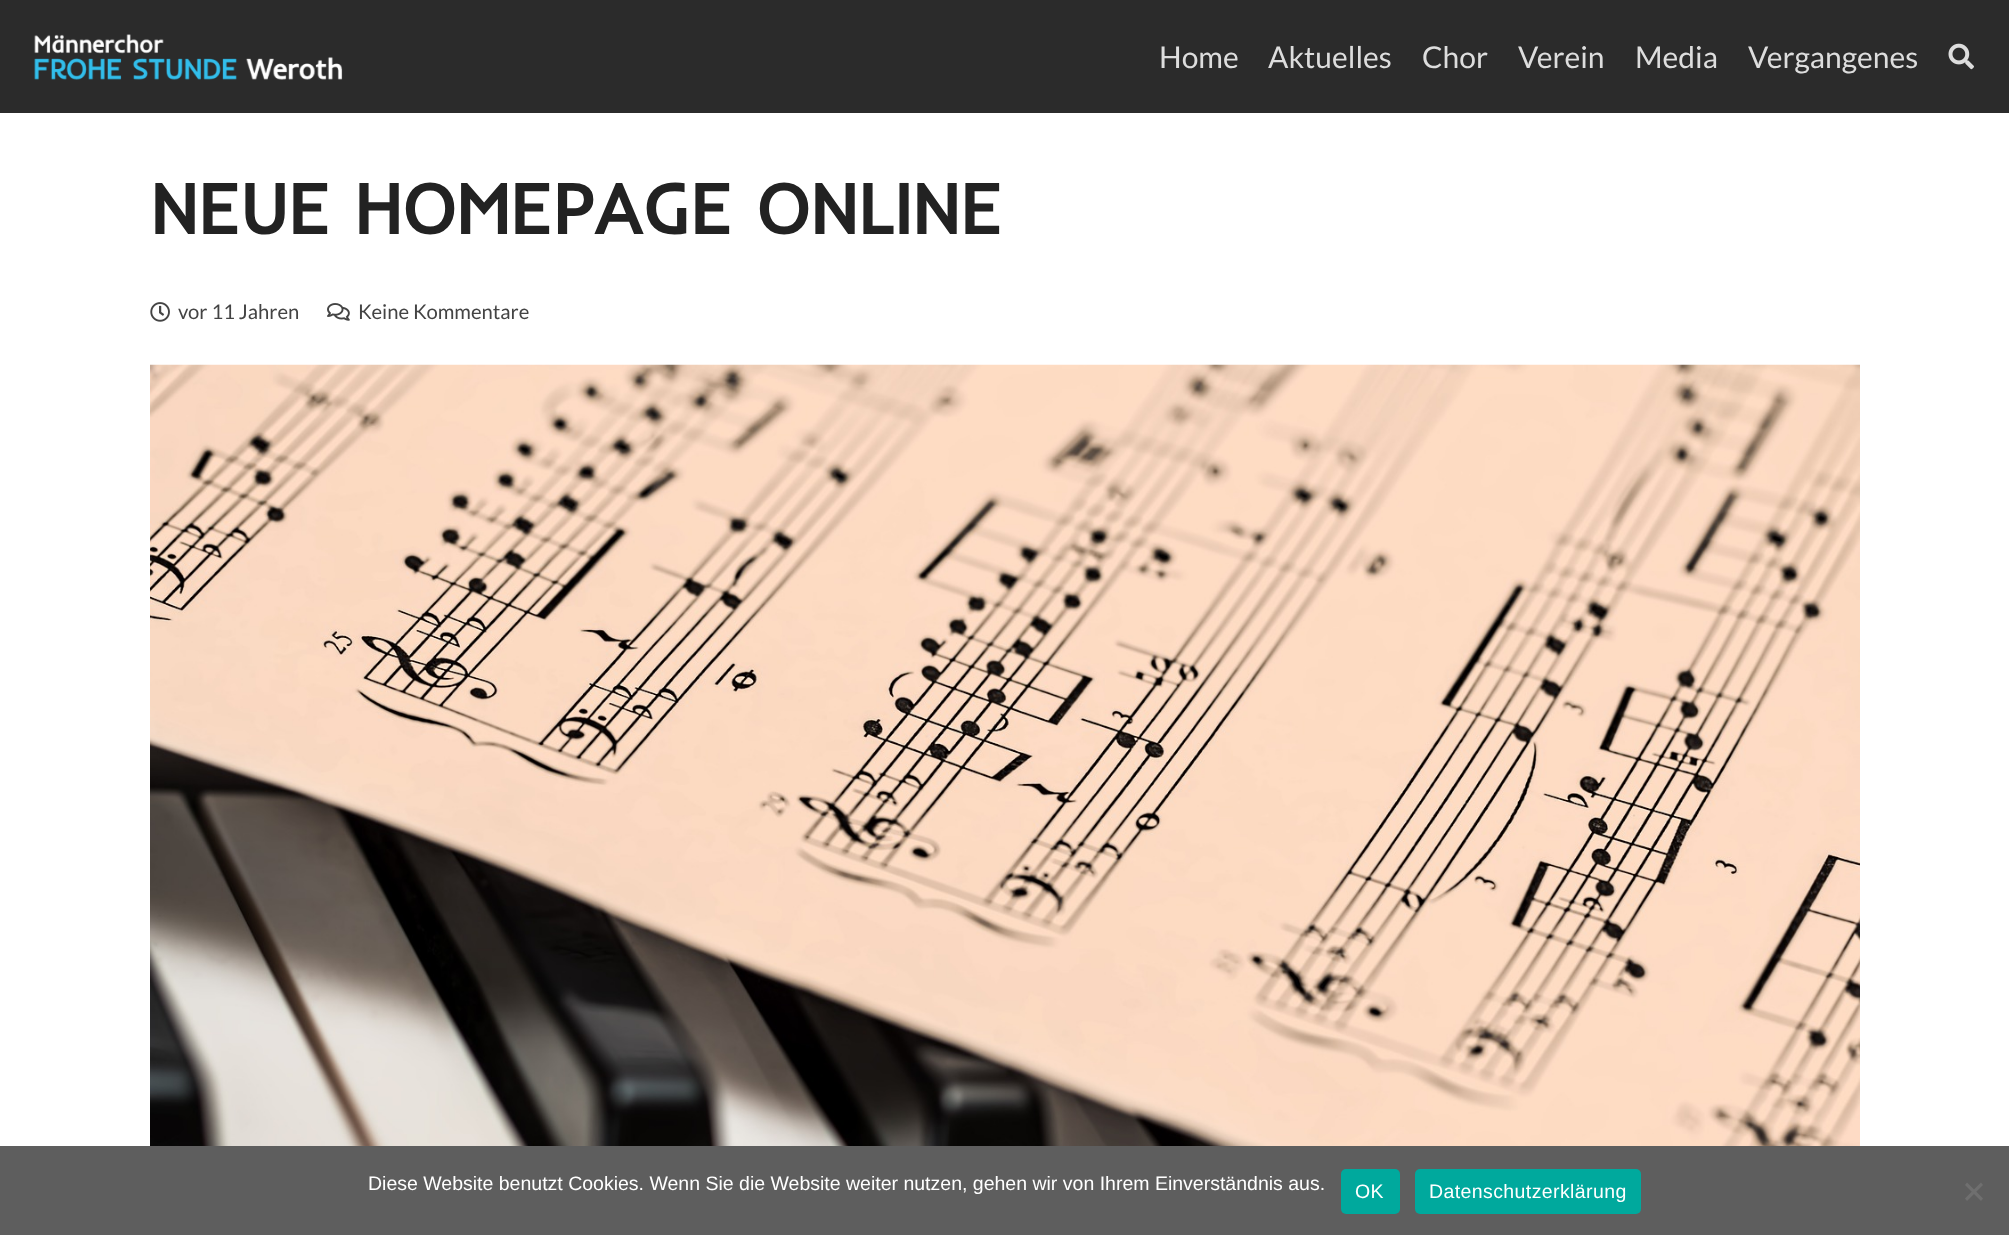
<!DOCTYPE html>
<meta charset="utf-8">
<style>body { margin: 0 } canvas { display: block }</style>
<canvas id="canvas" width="2009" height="1235"></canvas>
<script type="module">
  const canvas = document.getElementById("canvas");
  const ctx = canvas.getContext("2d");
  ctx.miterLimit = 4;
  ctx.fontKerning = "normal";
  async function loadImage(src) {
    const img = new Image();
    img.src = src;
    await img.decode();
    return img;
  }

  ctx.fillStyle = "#ffffff";
  ctx.fillRect(0, 0, 2009, 1235);
  ctx.fillStyle = "#2b2b2b";
  ctx.fillRect(0, 0, 2009, 113);
  ctx.drawImage(await loadImage("img1.png"), 34, 34, 309, 46);
  ctx.font = "30px Lato";
  ctx.fillStyle = "#dddddd";
  ctx.fillText("Home", 1159, 68);
  ctx.fillText("Aktuelles", 1268, 68);
  ctx.fillText("Chor", 1422, 68);
  ctx.fillText("Verein", 1518, 68);
  ctx.fillText("Media", 1635, 68);
  ctx.fillText("Vergangenes", 1748, 68);
  ctx.drawImage(await loadImage("img2.png"), 1948, 43, 26, 27);
  ctx.font = "bold 72px Inder";
  ctx.fillStyle = "#222222";
  ctx.fillText("NEUE HOMEPAGE ONLINE", 150, 234);
  ctx.drawImage(await loadImage("img3.png"), 150, 302, 20, 20);
  ctx.font = "20.25px Lato";
  ctx.fillStyle = "#444444";
  ctx.fillText("vor 11 Jahren", 178, 319);
  ctx.drawImage(await loadImage("img4.png"), 327, 303, 23, 18);
  ctx.fillText("Keine Kommentare", 358, 319);
  ctx.drawImage(await loadImage("img5.png"), 150, 364, 1710, 782);
  ctx.fillStyle = "#5e5e5e";
  ctx.fillRect(0, 1146, 2009, 89);
  ctx.font = "19.5px Liberation Sans";
  ctx.fillStyle = "#ffffff";
  ctx.fillText("Diese Website benutzt Cookies. Wenn Sie die Website weiter nutzen, gehen wir von Ihrem Einverständnis aus.", 368, 1190);
  ctx.fillStyle = "#00a99d";
  ctx.beginPath();
  ctx.roundRect(1341, 1169, 59, 45, 5);
  ctx.fill();
  ctx.letterSpacing = "0.4px";
  ctx.fillStyle = "#ffffff";
  ctx.fillText("OK", 1355, 1198);
  ctx.fillStyle = "#00a99d";
  ctx.beginPath();
  ctx.roundRect(1415, 1169, 226, 45, 5);
  ctx.fill();
  ctx.fillStyle = "#ffffff";
  ctx.fillText("Datenschutzerklärung", 1429, 1198);
  ctx.fillStyle = "#6f6f6f";
  ctx.beginPath();
  ctx.moveTo(1981, 1182.5);
  ctx.lineTo(1983, 1185);
  ctx.lineTo(1967, 1201);
  ctx.lineTo(1965, 1198.5);
  ctx.closePath();
  ctx.fill();
  ctx.beginPath();
  ctx.moveTo(1965, 1185);
  ctx.lineTo(1967, 1182.5);
  ctx.lineTo(1983, 1198.5);
  ctx.lineTo(1981, 1201);
  ctx.closePath();
  ctx.fill();
</script>
